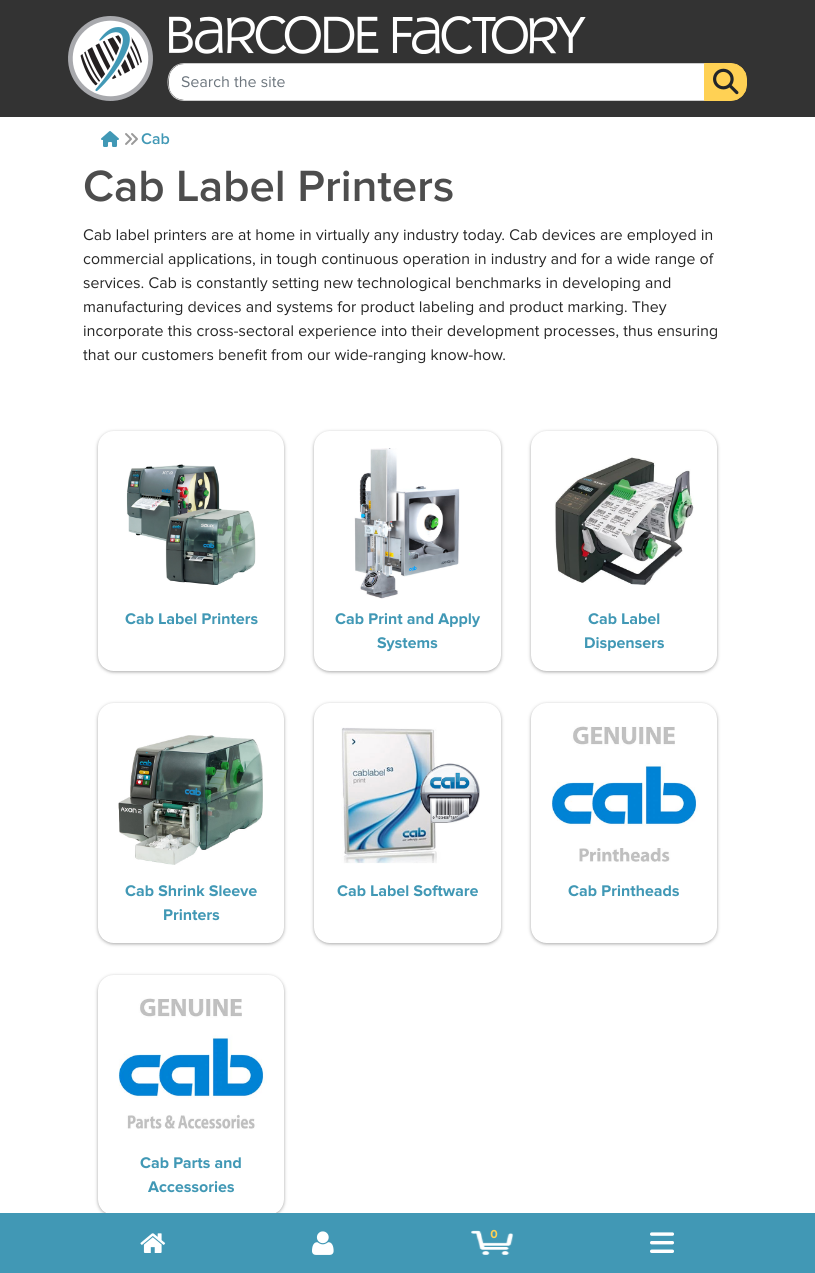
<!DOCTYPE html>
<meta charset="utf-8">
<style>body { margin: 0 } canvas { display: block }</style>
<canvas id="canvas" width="815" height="1273"></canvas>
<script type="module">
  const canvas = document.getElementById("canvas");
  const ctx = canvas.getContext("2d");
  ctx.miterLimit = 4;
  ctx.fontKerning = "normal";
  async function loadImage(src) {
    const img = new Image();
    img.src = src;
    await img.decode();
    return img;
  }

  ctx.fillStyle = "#ffffff";
  ctx.fillRect(0, 0, 815, 1273);
  ctx.fillStyle = "#333333";
  ctx.fillRect(0, 0, 815, 117);
  ctx.drawImage(await loadImage("img1.png"), 68, 16, 85, 85);
  ctx.drawImage(await loadImage("img2.png"), 169, 16, 417, 38);
  ctx.fillStyle = "#ffffff";
  ctx.beginPath();
  ctx.roundRect(169, 64, 536, 36, [15, 0, 0, 15]);
  ctx.fill();
  ctx.fillStyle = "#cccccc";
  ctx.beginPath();
  ctx.moveTo(184, 63);
  ctx.lineTo(705, 63);
  ctx.lineTo(705, 101);
  ctx.lineTo(184, 101);
  ctx.bezierCurveTo(162, 101, 162, 63, 184, 63);
  ctx.closePath();
  ctx.moveTo(184, 64);
  ctx.lineTo(705, 64);
  ctx.lineTo(705, 100);
  ctx.lineTo(184, 100);
  ctx.bezierCurveTo(177, 100, 171, 95, 169, 88);
  ctx.bezierCurveTo(167, 77, 171, 64, 184, 64);
  ctx.closePath();
  ctx.fill("evenodd");
  ctx.fillStyle = "#ffd154";
  ctx.beginPath();
  ctx.roundRect(704.5, 63.5, 42, 37, [0, 15.5, 15.5, 0]);
  ctx.fill();
  ctx.strokeStyle = "#ffd154";
  ctx.stroke();
  ctx.drawImage(await loadImage("img3.png"), 713, 68, 26, 27);
  ctx.drawImage(await loadImage("img4.png"), 181, 76, 104, 12);
  ctx.save();
  ctx.beginPath();
  ctx.moveTo(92, 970);
  ctx.lineTo(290, 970);
  ctx.lineTo(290, 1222);
  ctx.lineTo(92, 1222);
  ctx.closePath();
  ctx.moveTo(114, 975);
  ctx.lineTo(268, 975);
  ctx.bezierCurveTo(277, 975, 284, 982, 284, 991);
  ctx.lineTo(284, 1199);
  ctx.bezierCurveTo(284, 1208, 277, 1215, 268, 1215);
  ctx.lineTo(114, 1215);
  ctx.bezierCurveTo(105, 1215, 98, 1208, 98, 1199);
  ctx.lineTo(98, 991);
  ctx.bezierCurveTo(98, 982, 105, 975, 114, 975);
  ctx.closePath();
  ctx.clip("evenodd");
  ctx.fillStyle = "rgba(0, 0, 0, 0.24)";
  ctx.filter = "blur(1.5px)";
  ctx.beginPath();
  ctx.roundRect(98, 976, 186, 240, 16);
  ctx.fill();
  ctx.filter = "none";
  ctx.restore();
  ctx.save();
  ctx.beginPath();
  ctx.moveTo(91, 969);
  ctx.lineTo(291, 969);
  ctx.lineTo(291, 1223);
  ctx.lineTo(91, 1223);
  ctx.closePath();
  ctx.moveTo(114, 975);
  ctx.lineTo(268, 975);
  ctx.bezierCurveTo(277, 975, 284, 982, 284, 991);
  ctx.lineTo(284, 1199);
  ctx.bezierCurveTo(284, 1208, 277, 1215, 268, 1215);
  ctx.lineTo(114, 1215);
  ctx.bezierCurveTo(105, 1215, 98, 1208, 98, 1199);
  ctx.lineTo(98, 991);
  ctx.bezierCurveTo(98, 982, 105, 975, 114, 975);
  ctx.closePath();
  ctx.clip("evenodd");
  ctx.fillStyle = "rgba(0, 0, 0, 0.12)";
  ctx.filter = "blur(2px)";
  ctx.beginPath();
  ctx.roundRect(98, 976, 186, 240, 16);
  ctx.fill();
  ctx.filter = "none";
  ctx.restore();
  ctx.fillStyle = "#4198b5";
  ctx.fillRect(0, 1213, 815, 60);
  ctx.drawImage(await loadImage("img5.png"), 140, 1233, 26, 20);
  ctx.drawImage(await loadImage("img6.png"), 312, 1231, 22, 24);
  ctx.drawImage(await loadImage("img8.png"), 471, 1230, 43, 25);
  ctx.drawImage(await loadImage("img7.png"), 490, 1229, 8, 10);
  ctx.drawImage(await loadImage("img9.png"), 650, 1232, 24, 21);
  ctx.drawImage(await loadImage("img10.png"), 101, 131, 18, 16);
  ctx.drawImage(await loadImage("img11.png"), 125, 133, 13, 12);
  ctx.drawImage(await loadImage("img12.png"), 141, 133, 29, 12);
  ctx.drawImage(await loadImage("img13.png"), 84, 170, 369, 32);
  ctx.drawImage(await loadImage("img14.png"), 83, 229, 630, 15);
  ctx.drawImage(await loadImage("img15.png"), 83, 253, 631, 15);
  ctx.drawImage(await loadImage("img16.png"), 83, 277, 588, 15);
  ctx.drawImage(await loadImage("img17.png"), 84, 301, 583, 15);
  ctx.drawImage(await loadImage("img18.png"), 84, 325, 633, 15);
  ctx.drawImage(await loadImage("img19.png"), 83, 349, 422, 15);
  ctx.save();
  ctx.beginPath();
  ctx.moveTo(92, 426);
  ctx.lineTo(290, 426);
  ctx.lineTo(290, 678);
  ctx.lineTo(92, 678);
  ctx.closePath();
  ctx.moveTo(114, 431);
  ctx.lineTo(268, 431);
  ctx.bezierCurveTo(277, 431, 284, 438, 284, 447);
  ctx.lineTo(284, 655);
  ctx.bezierCurveTo(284, 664, 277, 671, 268, 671);
  ctx.lineTo(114, 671);
  ctx.bezierCurveTo(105, 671, 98, 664, 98, 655);
  ctx.lineTo(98, 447);
  ctx.bezierCurveTo(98, 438, 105, 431, 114, 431);
  ctx.closePath();
  ctx.clip("evenodd");
  ctx.fillStyle = "rgba(0, 0, 0, 0.24)";
  ctx.filter = "blur(1.5px)";
  ctx.beginPath();
  ctx.roundRect(98, 432, 186, 240, 16);
  ctx.fill();
  ctx.filter = "none";
  ctx.restore();
  ctx.save();
  ctx.beginPath();
  ctx.moveTo(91, 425);
  ctx.lineTo(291, 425);
  ctx.lineTo(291, 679);
  ctx.lineTo(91, 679);
  ctx.closePath();
  ctx.moveTo(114, 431);
  ctx.lineTo(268, 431);
  ctx.bezierCurveTo(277, 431, 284, 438, 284, 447);
  ctx.lineTo(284, 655);
  ctx.bezierCurveTo(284, 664, 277, 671, 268, 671);
  ctx.lineTo(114, 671);
  ctx.bezierCurveTo(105, 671, 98, 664, 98, 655);
  ctx.lineTo(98, 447);
  ctx.bezierCurveTo(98, 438, 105, 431, 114, 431);
  ctx.closePath();
  ctx.clip("evenodd");
  ctx.fillStyle = "rgba(0, 0, 0, 0.12)";
  ctx.filter = "blur(2px)";
  ctx.beginPath();
  ctx.roundRect(98, 432, 186, 240, 16);
  ctx.fill();
  ctx.filter = "none";
  ctx.restore();
  ctx.drawImage(await loadImage("img20.png"), 126, 464, 130, 121);
  ctx.drawImage(await loadImage("img21.png"), 125, 613, 133, 12);
  ctx.save();
  ctx.beginPath();
  ctx.moveTo(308, 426);
  ctx.lineTo(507, 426);
  ctx.lineTo(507, 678);
  ctx.lineTo(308, 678);
  ctx.closePath();
  ctx.moveTo(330, 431);
  ctx.lineTo(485, 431);
  ctx.bezierCurveTo(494, 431, 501, 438, 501, 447);
  ctx.lineTo(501, 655);
  ctx.bezierCurveTo(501, 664, 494, 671, 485, 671);
  ctx.lineTo(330, 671);
  ctx.bezierCurveTo(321, 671, 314, 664, 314, 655);
  ctx.lineTo(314, 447);
  ctx.bezierCurveTo(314, 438, 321, 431, 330, 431);
  ctx.closePath();
  ctx.clip("evenodd");
  ctx.fillStyle = "rgba(0, 0, 0, 0.24)";
  ctx.filter = "blur(1.5px)";
  ctx.beginPath();
  ctx.roundRect(314, 432, 187, 240, 16);
  ctx.fill();
  ctx.filter = "none";
  ctx.restore();
  ctx.save();
  ctx.beginPath();
  ctx.moveTo(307, 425);
  ctx.lineTo(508, 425);
  ctx.lineTo(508, 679);
  ctx.lineTo(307, 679);
  ctx.closePath();
  ctx.moveTo(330, 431);
  ctx.lineTo(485, 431);
  ctx.bezierCurveTo(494, 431, 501, 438, 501, 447);
  ctx.lineTo(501, 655);
  ctx.bezierCurveTo(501, 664, 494, 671, 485, 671);
  ctx.lineTo(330, 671);
  ctx.bezierCurveTo(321, 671, 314, 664, 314, 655);
  ctx.lineTo(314, 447);
  ctx.bezierCurveTo(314, 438, 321, 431, 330, 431);
  ctx.closePath();
  ctx.clip("evenodd");
  ctx.fillStyle = "rgba(0, 0, 0, 0.12)";
  ctx.filter = "blur(2px)";
  ctx.beginPath();
  ctx.roundRect(314, 432, 187, 240, 16);
  ctx.fill();
  ctx.filter = "none";
  ctx.restore();
  ctx.drawImage(await loadImage("img22.png"), 354, 448, 106, 151);
  ctx.drawImage(await loadImage("img23.png"), 335, 613, 146, 15);
  ctx.drawImage(await loadImage("img24.png"), 377, 637, 61, 15);
  ctx.save();
  ctx.beginPath();
  ctx.moveTo(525, 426);
  ctx.lineTo(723, 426);
  ctx.lineTo(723, 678);
  ctx.lineTo(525, 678);
  ctx.closePath();
  ctx.moveTo(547, 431);
  ctx.lineTo(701, 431);
  ctx.bezierCurveTo(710, 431, 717, 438, 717, 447);
  ctx.lineTo(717, 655);
  ctx.bezierCurveTo(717, 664, 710, 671, 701, 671);
  ctx.lineTo(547, 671);
  ctx.bezierCurveTo(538, 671, 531, 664, 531, 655);
  ctx.lineTo(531, 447);
  ctx.bezierCurveTo(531, 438, 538, 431, 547, 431);
  ctx.closePath();
  ctx.clip("evenodd");
  ctx.fillStyle = "rgba(0, 0, 0, 0.24)";
  ctx.filter = "blur(1.5px)";
  ctx.beginPath();
  ctx.roundRect(531, 432, 186, 240, 16);
  ctx.fill();
  ctx.filter = "none";
  ctx.restore();
  ctx.save();
  ctx.beginPath();
  ctx.moveTo(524, 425);
  ctx.lineTo(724, 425);
  ctx.lineTo(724, 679);
  ctx.lineTo(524, 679);
  ctx.closePath();
  ctx.moveTo(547, 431);
  ctx.lineTo(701, 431);
  ctx.bezierCurveTo(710, 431, 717, 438, 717, 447);
  ctx.lineTo(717, 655);
  ctx.bezierCurveTo(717, 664, 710, 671, 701, 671);
  ctx.lineTo(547, 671);
  ctx.bezierCurveTo(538, 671, 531, 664, 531, 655);
  ctx.lineTo(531, 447);
  ctx.bezierCurveTo(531, 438, 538, 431, 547, 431);
  ctx.closePath();
  ctx.clip("evenodd");
  ctx.fillStyle = "rgba(0, 0, 0, 0.12)";
  ctx.filter = "blur(2px)";
  ctx.beginPath();
  ctx.roundRect(531, 432, 186, 240, 16);
  ctx.fill();
  ctx.filter = "none";
  ctx.restore();
  ctx.drawImage(await loadImage("img25.png"), 554, 457, 140, 128);
  ctx.drawImage(await loadImage("img26.png"), 588, 613, 72, 12);
  ctx.drawImage(await loadImage("img27.png"), 585, 637, 79, 14);
  ctx.save();
  ctx.beginPath();
  ctx.moveTo(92, 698);
  ctx.lineTo(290, 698);
  ctx.lineTo(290, 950);
  ctx.lineTo(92, 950);
  ctx.closePath();
  ctx.moveTo(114, 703);
  ctx.lineTo(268, 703);
  ctx.bezierCurveTo(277, 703, 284, 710, 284, 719);
  ctx.lineTo(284, 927);
  ctx.bezierCurveTo(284, 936, 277, 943, 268, 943);
  ctx.lineTo(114, 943);
  ctx.bezierCurveTo(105, 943, 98, 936, 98, 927);
  ctx.lineTo(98, 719);
  ctx.bezierCurveTo(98, 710, 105, 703, 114, 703);
  ctx.closePath();
  ctx.clip("evenodd");
  ctx.fillStyle = "rgba(0, 0, 0, 0.24)";
  ctx.filter = "blur(1.5px)";
  ctx.beginPath();
  ctx.roundRect(98, 704, 186, 240, 16);
  ctx.fill();
  ctx.filter = "none";
  ctx.restore();
  ctx.save();
  ctx.beginPath();
  ctx.moveTo(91, 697);
  ctx.lineTo(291, 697);
  ctx.lineTo(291, 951);
  ctx.lineTo(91, 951);
  ctx.closePath();
  ctx.moveTo(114, 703);
  ctx.lineTo(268, 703);
  ctx.bezierCurveTo(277, 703, 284, 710, 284, 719);
  ctx.lineTo(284, 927);
  ctx.bezierCurveTo(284, 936, 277, 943, 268, 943);
  ctx.lineTo(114, 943);
  ctx.bezierCurveTo(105, 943, 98, 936, 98, 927);
  ctx.lineTo(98, 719);
  ctx.bezierCurveTo(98, 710, 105, 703, 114, 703);
  ctx.closePath();
  ctx.clip("evenodd");
  ctx.fillStyle = "rgba(0, 0, 0, 0.12)";
  ctx.filter = "blur(2px)";
  ctx.beginPath();
  ctx.roundRect(98, 704, 186, 240, 16);
  ctx.fill();
  ctx.filter = "none";
  ctx.restore();
  ctx.drawImage(await loadImage("img28.png"), 118, 735, 145, 130);
  ctx.drawImage(await loadImage("img29.png"), 125, 885, 132, 12);
  ctx.drawImage(await loadImage("img30.png"), 164, 909, 56, 12);
  ctx.save();
  ctx.beginPath();
  ctx.moveTo(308, 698);
  ctx.lineTo(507, 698);
  ctx.lineTo(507, 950);
  ctx.lineTo(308, 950);
  ctx.closePath();
  ctx.moveTo(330, 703);
  ctx.lineTo(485, 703);
  ctx.bezierCurveTo(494, 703, 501, 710, 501, 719);
  ctx.lineTo(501, 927);
  ctx.bezierCurveTo(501, 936, 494, 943, 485, 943);
  ctx.lineTo(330, 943);
  ctx.bezierCurveTo(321, 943, 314, 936, 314, 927);
  ctx.lineTo(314, 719);
  ctx.bezierCurveTo(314, 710, 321, 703, 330, 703);
  ctx.closePath();
  ctx.clip("evenodd");
  ctx.fillStyle = "rgba(0, 0, 0, 0.24)";
  ctx.filter = "blur(1.5px)";
  ctx.beginPath();
  ctx.roundRect(314, 704, 187, 240, 16);
  ctx.fill();
  ctx.filter = "none";
  ctx.restore();
  ctx.save();
  ctx.beginPath();
  ctx.moveTo(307, 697);
  ctx.lineTo(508, 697);
  ctx.lineTo(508, 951);
  ctx.lineTo(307, 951);
  ctx.closePath();
  ctx.moveTo(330, 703);
  ctx.lineTo(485, 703);
  ctx.bezierCurveTo(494, 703, 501, 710, 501, 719);
  ctx.lineTo(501, 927);
  ctx.bezierCurveTo(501, 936, 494, 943, 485, 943);
  ctx.lineTo(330, 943);
  ctx.bezierCurveTo(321, 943, 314, 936, 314, 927);
  ctx.lineTo(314, 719);
  ctx.bezierCurveTo(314, 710, 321, 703, 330, 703);
  ctx.closePath();
  ctx.clip("evenodd");
  ctx.fillStyle = "rgba(0, 0, 0, 0.12)";
  ctx.filter = "blur(2px)";
  ctx.beginPath();
  ctx.roundRect(314, 704, 187, 240, 16);
  ctx.fill();
  ctx.filter = "none";
  ctx.restore();
  ctx.drawImage(await loadImage("img31.png"), 341, 727, 139, 137);
  ctx.drawImage(await loadImage("img32.png"), 337, 885, 141, 12);
  ctx.save();
  ctx.beginPath();
  ctx.moveTo(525, 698);
  ctx.lineTo(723, 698);
  ctx.lineTo(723, 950);
  ctx.lineTo(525, 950);
  ctx.closePath();
  ctx.moveTo(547, 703);
  ctx.lineTo(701, 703);
  ctx.bezierCurveTo(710, 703, 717, 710, 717, 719);
  ctx.lineTo(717, 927);
  ctx.bezierCurveTo(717, 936, 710, 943, 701, 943);
  ctx.lineTo(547, 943);
  ctx.bezierCurveTo(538, 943, 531, 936, 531, 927);
  ctx.lineTo(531, 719);
  ctx.bezierCurveTo(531, 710, 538, 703, 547, 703);
  ctx.closePath();
  ctx.clip("evenodd");
  ctx.fillStyle = "rgba(0, 0, 0, 0.24)";
  ctx.filter = "blur(1.5px)";
  ctx.beginPath();
  ctx.roundRect(531, 704, 186, 240, 16);
  ctx.fill();
  ctx.filter = "none";
  ctx.restore();
  ctx.save();
  ctx.beginPath();
  ctx.moveTo(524, 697);
  ctx.lineTo(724, 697);
  ctx.lineTo(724, 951);
  ctx.lineTo(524, 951);
  ctx.closePath();
  ctx.moveTo(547, 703);
  ctx.lineTo(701, 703);
  ctx.bezierCurveTo(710, 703, 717, 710, 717, 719);
  ctx.lineTo(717, 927);
  ctx.bezierCurveTo(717, 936, 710, 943, 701, 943);
  ctx.lineTo(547, 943);
  ctx.bezierCurveTo(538, 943, 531, 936, 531, 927);
  ctx.lineTo(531, 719);
  ctx.bezierCurveTo(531, 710, 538, 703, 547, 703);
  ctx.closePath();
  ctx.clip("evenodd");
  ctx.fillStyle = "rgba(0, 0, 0, 0.12)";
  ctx.filter = "blur(2px)";
  ctx.beginPath();
  ctx.roundRect(531, 704, 186, 240, 16);
  ctx.fill();
  ctx.filter = "none";
  ctx.restore();
  ctx.drawImage(await loadImage("img33.png"), 551, 726, 149, 136);
  ctx.drawImage(await loadImage("img34.png"), 568, 885, 111, 12);
  ctx.drawImage(await loadImage("img35.png"), 118, 998, 149, 131);
  ctx.drawImage(await loadImage("img36.png"), 140, 1157, 101, 12);
  ctx.drawImage(await loadImage("img37.png"), 148, 1181, 86, 12);
</script>
